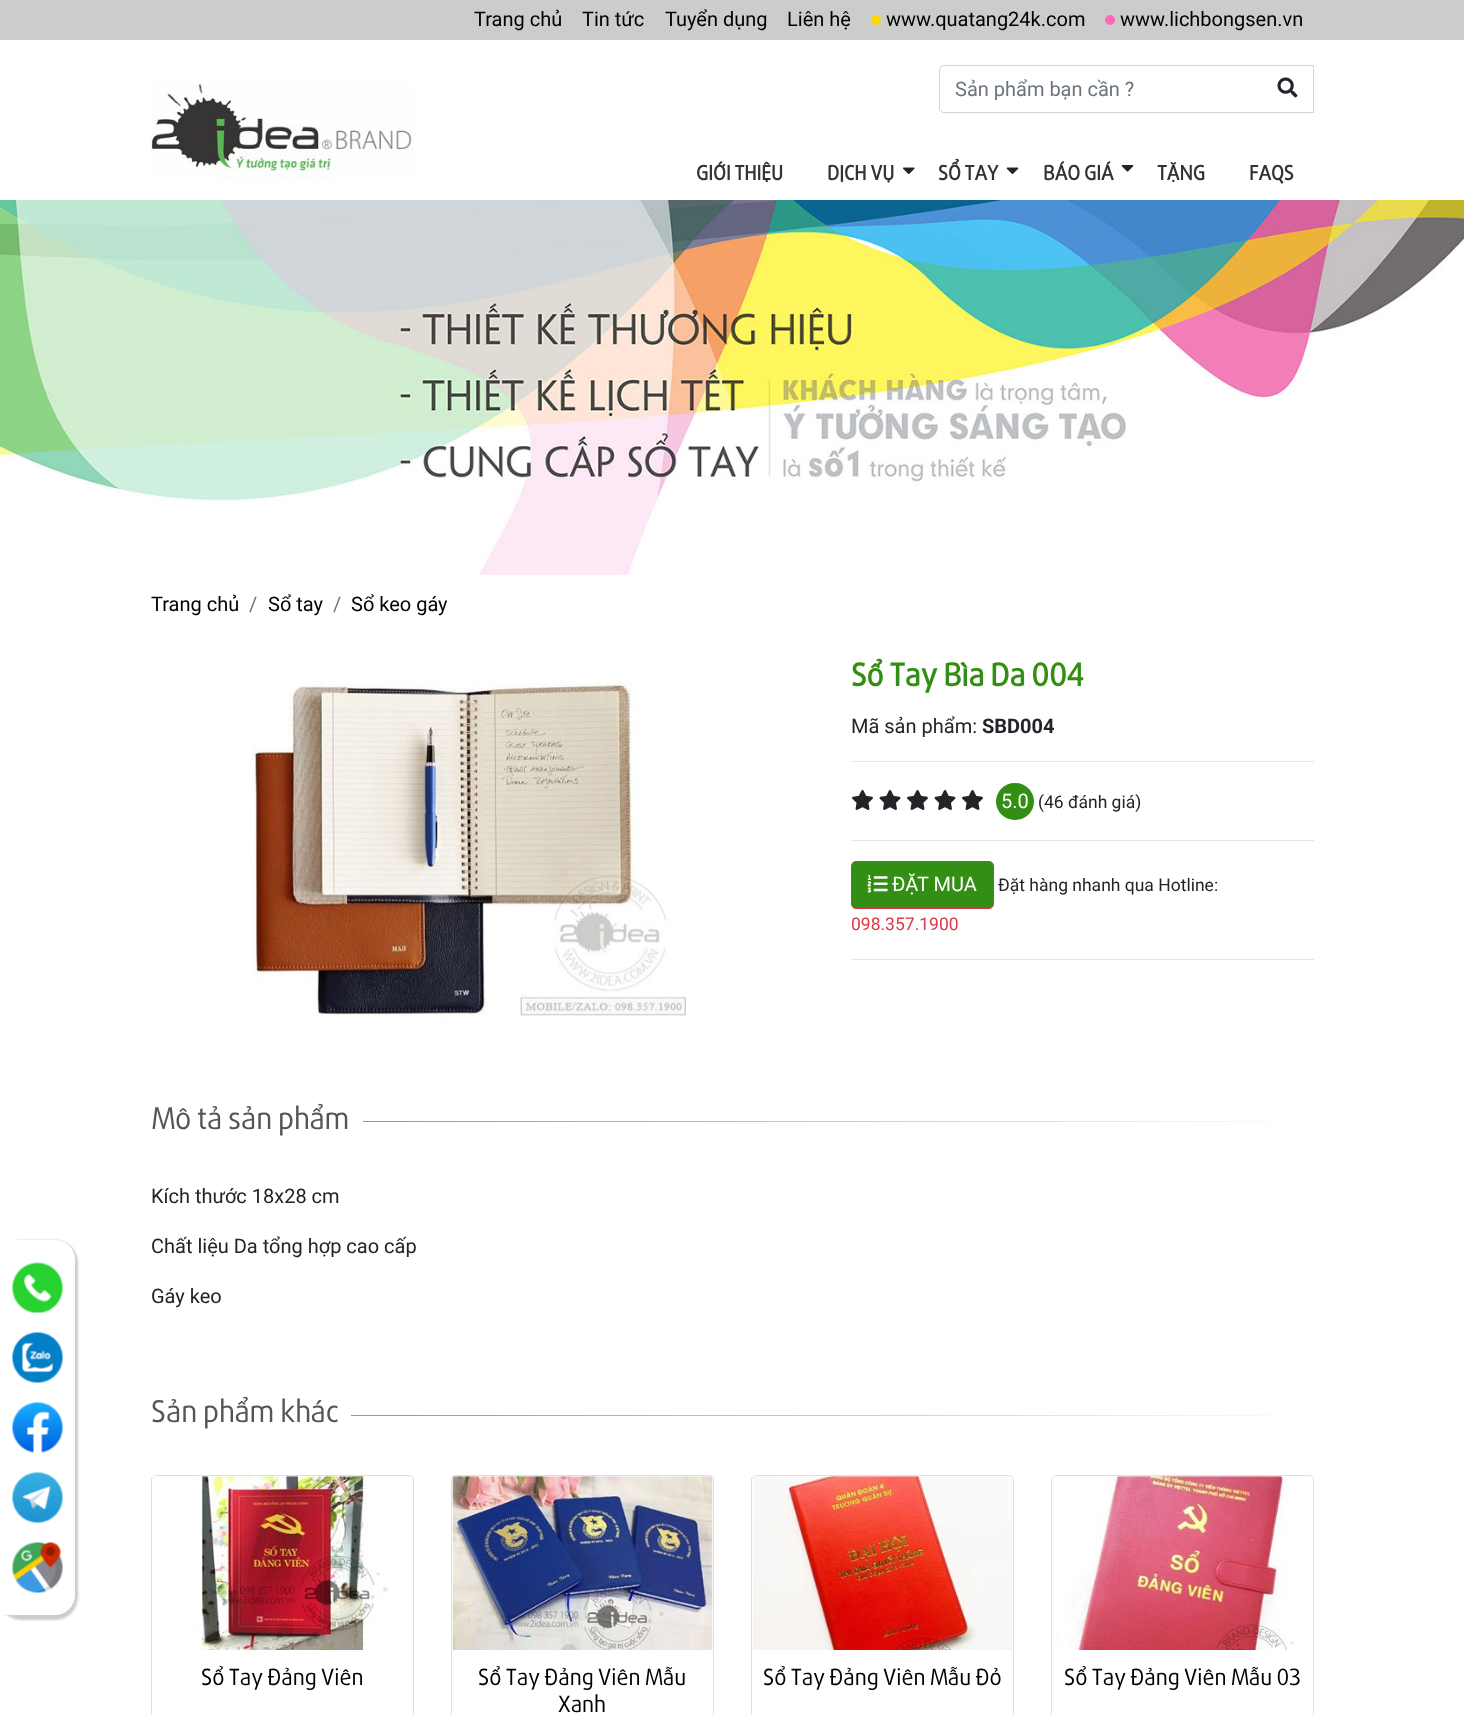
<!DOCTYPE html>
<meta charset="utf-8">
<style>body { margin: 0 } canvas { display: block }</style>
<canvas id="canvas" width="1464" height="1715"></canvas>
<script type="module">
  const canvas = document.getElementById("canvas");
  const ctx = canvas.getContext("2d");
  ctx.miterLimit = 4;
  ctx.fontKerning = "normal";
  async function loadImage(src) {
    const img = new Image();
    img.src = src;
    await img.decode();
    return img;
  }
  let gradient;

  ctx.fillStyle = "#ffffff";
  ctx.fillRect(0, 0, 1464, 1715);
  ctx.fillStyle = "#cccccc";
  ctx.fillRect(0, 0, 1464, 40);
  ctx.font = "20px Roboto";
  ctx.fillStyle = "#000000";
  ctx.fillText("Trang chủ", 474, 26);
  ctx.fillText("Tin tức", 582, 26);
  ctx.fillText("Tuyển dụng", 665, 26);
  ctx.fillText("Liên hệ", 787, 26);
  ctx.fillStyle = "#ffd700";
  ctx.beginPath();
  ctx.arc(876, 20, 5, 0, Math.PI * 2);
  ctx.fill();
  ctx.fillStyle = "#000000";
  ctx.fillText("www.quatang24k.com", 886, 26);
  ctx.fillStyle = "#ff69b4";
  ctx.beginPath();
  ctx.arc(1110, 20, 5, 0, Math.PI * 2);
  ctx.fill();
  ctx.fillStyle = "#000000";
  ctx.fillText("www.lichbongsen.vn", 1120, 26);
  ctx.beginPath();
  ctx.roundRect(939.5, 65.5, 374, 47, [4.5, 0, 0, 4.5]);
  ctx.strokeStyle = "#ced4da";
  ctx.stroke();
  ctx.fillStyle = "#6c757d";
  ctx.fillText("Sản phẩm bạn cần ?", 955, 96);
  ctx.drawImage(await loadImage("img1.png"), 1277, 77, 21, 21);
  ctx.drawImage(await loadImage("img2.png"), 151, 83, 263, 97);
  ctx.font = "bold 20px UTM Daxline";
  ctx.fillStyle = "#333333";
  ctx.fillText("GIỚI THIỆU", 696, 180);
  ctx.fillText("DỊCH VỤ", 827, 180);
  ctx.drawImage(await loadImage("img3.png"), 903, 167, 12, 8);
  ctx.fillText("SỔ TAY", 938, 180);
  ctx.drawImage(await loadImage("img4.png"), 1006, 167, 13, 8);
  ctx.fillText("BÁO GIÁ", 1043, 180);
  ctx.drawImage(await loadImage("img5.png"), 1121, 165, 13, 7);
  ctx.fillText("TẶNG", 1157, 180);
  ctx.fillText("FAQS", 1249, 180);
  ctx.drawImage(await loadImage("img6.png"), 0, 200, 1464, 375);
  ctx.fillStyle = "#cccccc";
  ctx.filter = "blur(1px)";
  ctx.beginPath();
  ctx.roundRect(-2, 1240, 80, 380, 23);
  ctx.fill();
  ctx.filter = "none";
  ctx.fillStyle = "#ffffff";
  ctx.beginPath();
  ctx.roundRect(0, 1240, 75, 375, [0, 20, 20, 0]);
  ctx.fill();
  ctx.drawImage(await loadImage("img7.png"), 12, 1262, 51, 51);
  ctx.drawImage(await loadImage("img8.png"), 12, 1332, 51, 51);
  ctx.drawImage(await loadImage("img9.png"), 12, 1402, 51, 51);
  ctx.drawImage(await loadImage("img10.png"), 12, 1472, 51, 51);
  ctx.drawImage(await loadImage("img11.png"), 12, 1542, 51, 51);
  ctx.font = "20px Roboto";
  ctx.fillStyle = "#000000";
  ctx.fillText("Trang chủ", 151, 611);
  ctx.fillStyle = "#6c757d";
  ctx.fillText("/", 249, 611);
  ctx.fillStyle = "#000000";
  ctx.fillText("Sổ tay", 268, 611);
  ctx.fillStyle = "#6c757d";
  ctx.fillText("/", 333, 611);
  ctx.fillStyle = "#000000";
  ctx.fillText("Sổ keo gáy", 351, 611);
  ctx.drawImage(await loadImage("img12.png"), 251, 681, 435, 337);
  ctx.font = "bold 31.25px UTM Daxline";
  ctx.fillStyle = "#338f13";
  ctx.fillText("Sổ Tay Bìa Da 004", 851, 686);
  ctx.font = "20px Roboto";
  ctx.fillStyle = "#212529";
  ctx.fillText("Mã sản phẩm:", 851, 733);
  ctx.font = "bold 20px Roboto";
  ctx.fillText("SBD004", 982, 733);
  ctx.fillStyle = "#e6e6e6";
  ctx.fillRect(851, 761, 463, 1);
  ctx.drawImage(await loadImage("img13.png"), 852, 790, 21, 20);
  ctx.drawImage(await loadImage("img14.png"), 879, 790, 22, 20);
  ctx.drawImage(await loadImage("img13.png"), 907, 790, 21, 20);
  ctx.drawImage(await loadImage("img14.png"), 934, 790, 22, 20);
  ctx.drawImage(await loadImage("img13.png"), 962, 790, 21, 20);
  ctx.fillStyle = "#338f13";
  ctx.beginPath();
  ctx.roundRect(996, 783, 38, 37, 18.5);
  ctx.fill();
  ctx.font = "20px Roboto";
  ctx.fillStyle = "#ffffff";
  ctx.fillText("5.0", 1001, 808);
  ctx.font = "17.5px Roboto";
  ctx.fillStyle = "#212529";
  ctx.fillText("(46 đánh giá)", 1038, 808);
  ctx.fillStyle = "#e6e6e6";
  ctx.fillRect(851, 840, 463, 1);
  ctx.fillStyle = "#338f13";
  ctx.beginPath();
  ctx.roundRect(851.5, 861.5, 142, 47, 4.5);
  ctx.fill();
  ctx.strokeStyle = "#dc3545";
  ctx.stroke();
  ctx.drawImage(await loadImage("img15.png"), 867, 875, 21, 18);
  ctx.font = "20px Roboto";
  ctx.fillStyle = "#ffffff";
  ctx.fillText("ĐẶT MUA", 892, 891);
  ctx.font = "17.5px Roboto";
  ctx.fillStyle = "#212529";
  ctx.fillText("Đặt hàng nhanh qua Hotline:", 998, 891);
  ctx.fillStyle = "#dc3545";
  ctx.fillText("098.357.1900", 851, 930);
  ctx.fillStyle = "#e6e6e6";
  ctx.fillRect(851, 959, 463, 1);
  ctx.font = "30px UTM Daxline";
  ctx.fillStyle = "#555555";
  ctx.fillText("Mô tả sản phẩm", 151, 1129);
  gradient = ctx.createLinearGradient(151, 1122, 1314, 1122);
  gradient.addColorStop(0, "#808080");
  gradient.addColorStop(1, "#ffffff");
  ctx.fillStyle = gradient;
  ctx.fillRect(363, 1121, 928, 1);
  ctx.font = "20px Roboto";
  ctx.fillStyle = "#212529";
  ctx.fillText("Kích thước 18x28 cm", 151, 1203);
  ctx.fillText("Chất liệu Da tổng hợp cao cấp", 151, 1253);
  ctx.fillText("Gáy keo", 151, 1303);
  ctx.font = "30px UTM Daxline";
  ctx.fillStyle = "#555555";
  ctx.fillText("Sản phẩm khác", 151, 1422);
  gradient = ctx.createLinearGradient(151, 1416, 1314, 1416);
  gradient.addColorStop(0, "#808080");
  gradient.addColorStop(1, "#ffffff");
  ctx.fillStyle = gradient;
  ctx.fillRect(351, 1415, 940, 1);
  ctx.beginPath();
  ctx.roundRect(151.5, 1475.5, 262, 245, 4.5);
  ctx.strokeStyle = "#dfdfdf";
  ctx.stroke();
  ctx.drawImage(await loadImage("img16.png"), 152, 1476, 261, 174);
  ctx.font = "22.5px UTM Daxline";
  ctx.fillStyle = "#000000";
  ctx.fillText("Sổ Tay Đảng Viên", 201, 1685);
  ctx.beginPath();
  ctx.roundRect(451.5, 1475.5, 262, 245, 4.5);
  ctx.stroke();
  ctx.drawImage(await loadImage("img17.png"), 452, 1476, 261, 174);
  ctx.fillText("Sổ Tay Đảng Viên Mẫu", 478, 1685);
  ctx.fillText("Xanh", 558, 1712);
  ctx.beginPath();
  ctx.roundRect(751.5, 1475.5, 262, 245, 4.5);
  ctx.stroke();
  ctx.drawImage(await loadImage("img18.png"), 752, 1476, 261, 174);
  ctx.fillText("Sổ Tay Đảng Viên Mẫu Đỏ", 763, 1685);
  ctx.beginPath();
  ctx.roundRect(1051.5, 1475.5, 262, 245, 4.5);
  ctx.stroke();
  ctx.drawImage(await loadImage("img19.png"), 1052, 1476, 261, 174);
  ctx.fillText("Sổ Tay Đảng Viên Mẫu 03", 1064, 1685);
</script>
